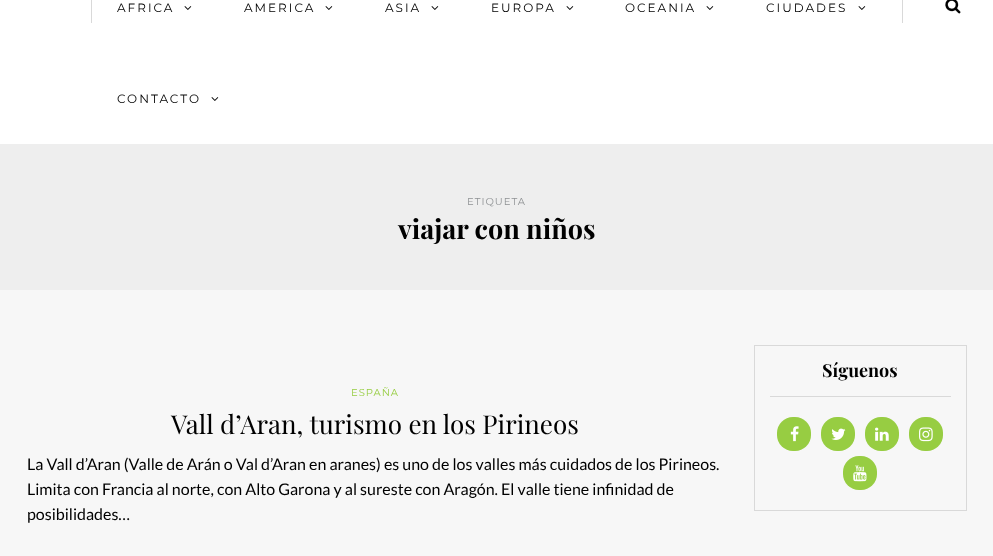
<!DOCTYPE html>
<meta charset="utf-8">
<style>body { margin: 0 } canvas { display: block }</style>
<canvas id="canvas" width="993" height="556"></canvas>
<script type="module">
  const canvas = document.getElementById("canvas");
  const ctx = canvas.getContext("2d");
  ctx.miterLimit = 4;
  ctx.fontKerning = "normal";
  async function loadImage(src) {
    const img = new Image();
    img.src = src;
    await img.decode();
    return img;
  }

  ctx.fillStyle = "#f7f7f7";
  ctx.fillRect(0, 0, 993, 556);
  ctx.fillStyle = "#ffffff";
  ctx.fillRect(0, 0, 993, 144);
  ctx.fillStyle = "#d9d9d9";
  ctx.fillRect(91, 0, 1, 23);
  ctx.letterSpacing = "2px";
  ctx.font = "100 12px Montserrat";
  ctx.fillStyle = "#000000";
  ctx.fillText("AFRICA", 117, 12);
  ctx.drawImage(await loadImage("img1.png"), 184, 6, 8, 4);
  ctx.fillText("AMERICA", 244, 12);
  ctx.drawImage(await loadImage("img1.png"), 325, 6, 8, 4);
  ctx.fillText("ASIA", 385, 12);
  ctx.drawImage(await loadImage("img1.png"), 431, 6, 8, 4);
  ctx.fillText("EUROPA", 491, 12);
  ctx.drawImage(await loadImage("img1.png"), 566, 6, 8, 4);
  ctx.fillText("OCEANIA", 625, 12);
  ctx.drawImage(await loadImage("img1.png"), 706, 6, 8, 4);
  ctx.fillText("CIUDADES", 766, 12);
  ctx.drawImage(await loadImage("img1.png"), 858, 6, 8, 4);
  ctx.fillText("CONTACTO", 117, 103);
  ctx.drawImage(await loadImage("img1.png"), 211, 97, 8, 4);
  ctx.fillStyle = "#d9d9d9";
  ctx.fillRect(902, 0, 1, 23);
  ctx.drawImage(await loadImage("img2.png"), 945, 0, 16, 14);
  ctx.fillStyle = "#eeeeee";
  ctx.fillRect(0, 144, 993, 146);
  ctx.letterSpacing = "1px";
  ctx.font = "100 10px Montserrat";
  ctx.fillStyle = "#8f9294";
  ctx.fillText("ETIQUETA", 467, 205);
  ctx.letterSpacing = "0px";
  ctx.font = "bold 27px Playfair Display";
  ctx.fillStyle = "#000000";
  ctx.fillText("viajar con niños", 398, 239);
  ctx.strokeStyle = "#d9d9d9";
  ctx.strokeRect(754.5, 345.5, 212, 165);
  ctx.fillStyle = "#d9d9d9";
  ctx.fillRect(770, 396, 181, 1);
  ctx.font = "bold 18px Playfair Display";
  ctx.fillStyle = "#000000";
  ctx.fillText("Síguenos", 822, 377);
  ctx.fillStyle = "#97cd42";
  ctx.beginPath();
  ctx.roundRect(777, 417, 34, 34, 16);
  ctx.fill();
  ctx.drawImage(await loadImage("img3.png"), 790, 426, 9, 16);
  ctx.beginPath();
  ctx.roundRect(821, 417, 34, 34, 16);
  ctx.fill();
  ctx.drawImage(await loadImage("img4.png"), 831, 428, 15, 12);
  ctx.beginPath();
  ctx.roundRect(865, 417, 34, 34, 16);
  ctx.fill();
  ctx.drawImage(await loadImage("img5.png"), 875, 427, 14, 14);
  ctx.beginPath();
  ctx.roundRect(909, 417, 34, 34, 16);
  ctx.fill();
  ctx.drawImage(await loadImage("img6.png"), 919, 427, 14, 15);
  ctx.beginPath();
  ctx.roundRect(843, 456, 34, 34, 16);
  ctx.fill();
  ctx.drawImage(await loadImage("img7.png"), 853, 465, 14, 17);
  ctx.letterSpacing = "1px";
  ctx.font = "100 10px Montserrat";
  ctx.fillText("ESPAÑA", 351, 396);
  ctx.letterSpacing = "0px";
  ctx.font = "26px Playfair Display";
  ctx.fillStyle = "#000000";
  ctx.fillText("Vall d’Aran, turismo en los Pirineos", 171, 434);
  ctx.font = "16px Lato";
  ctx.fillText("La Vall d’Aran (Valle de Arán o Val d’Aran en aranes) es uno de los valles más cuidados de los Pirineos.", 27, 470);
  ctx.fillText("Limita con Francia al norte, con Alto Garona y al sureste con Aragón. El valle tiene infinidad de", 27, 495);
  ctx.fillText("posibilidades…", 27, 520);
</script>
